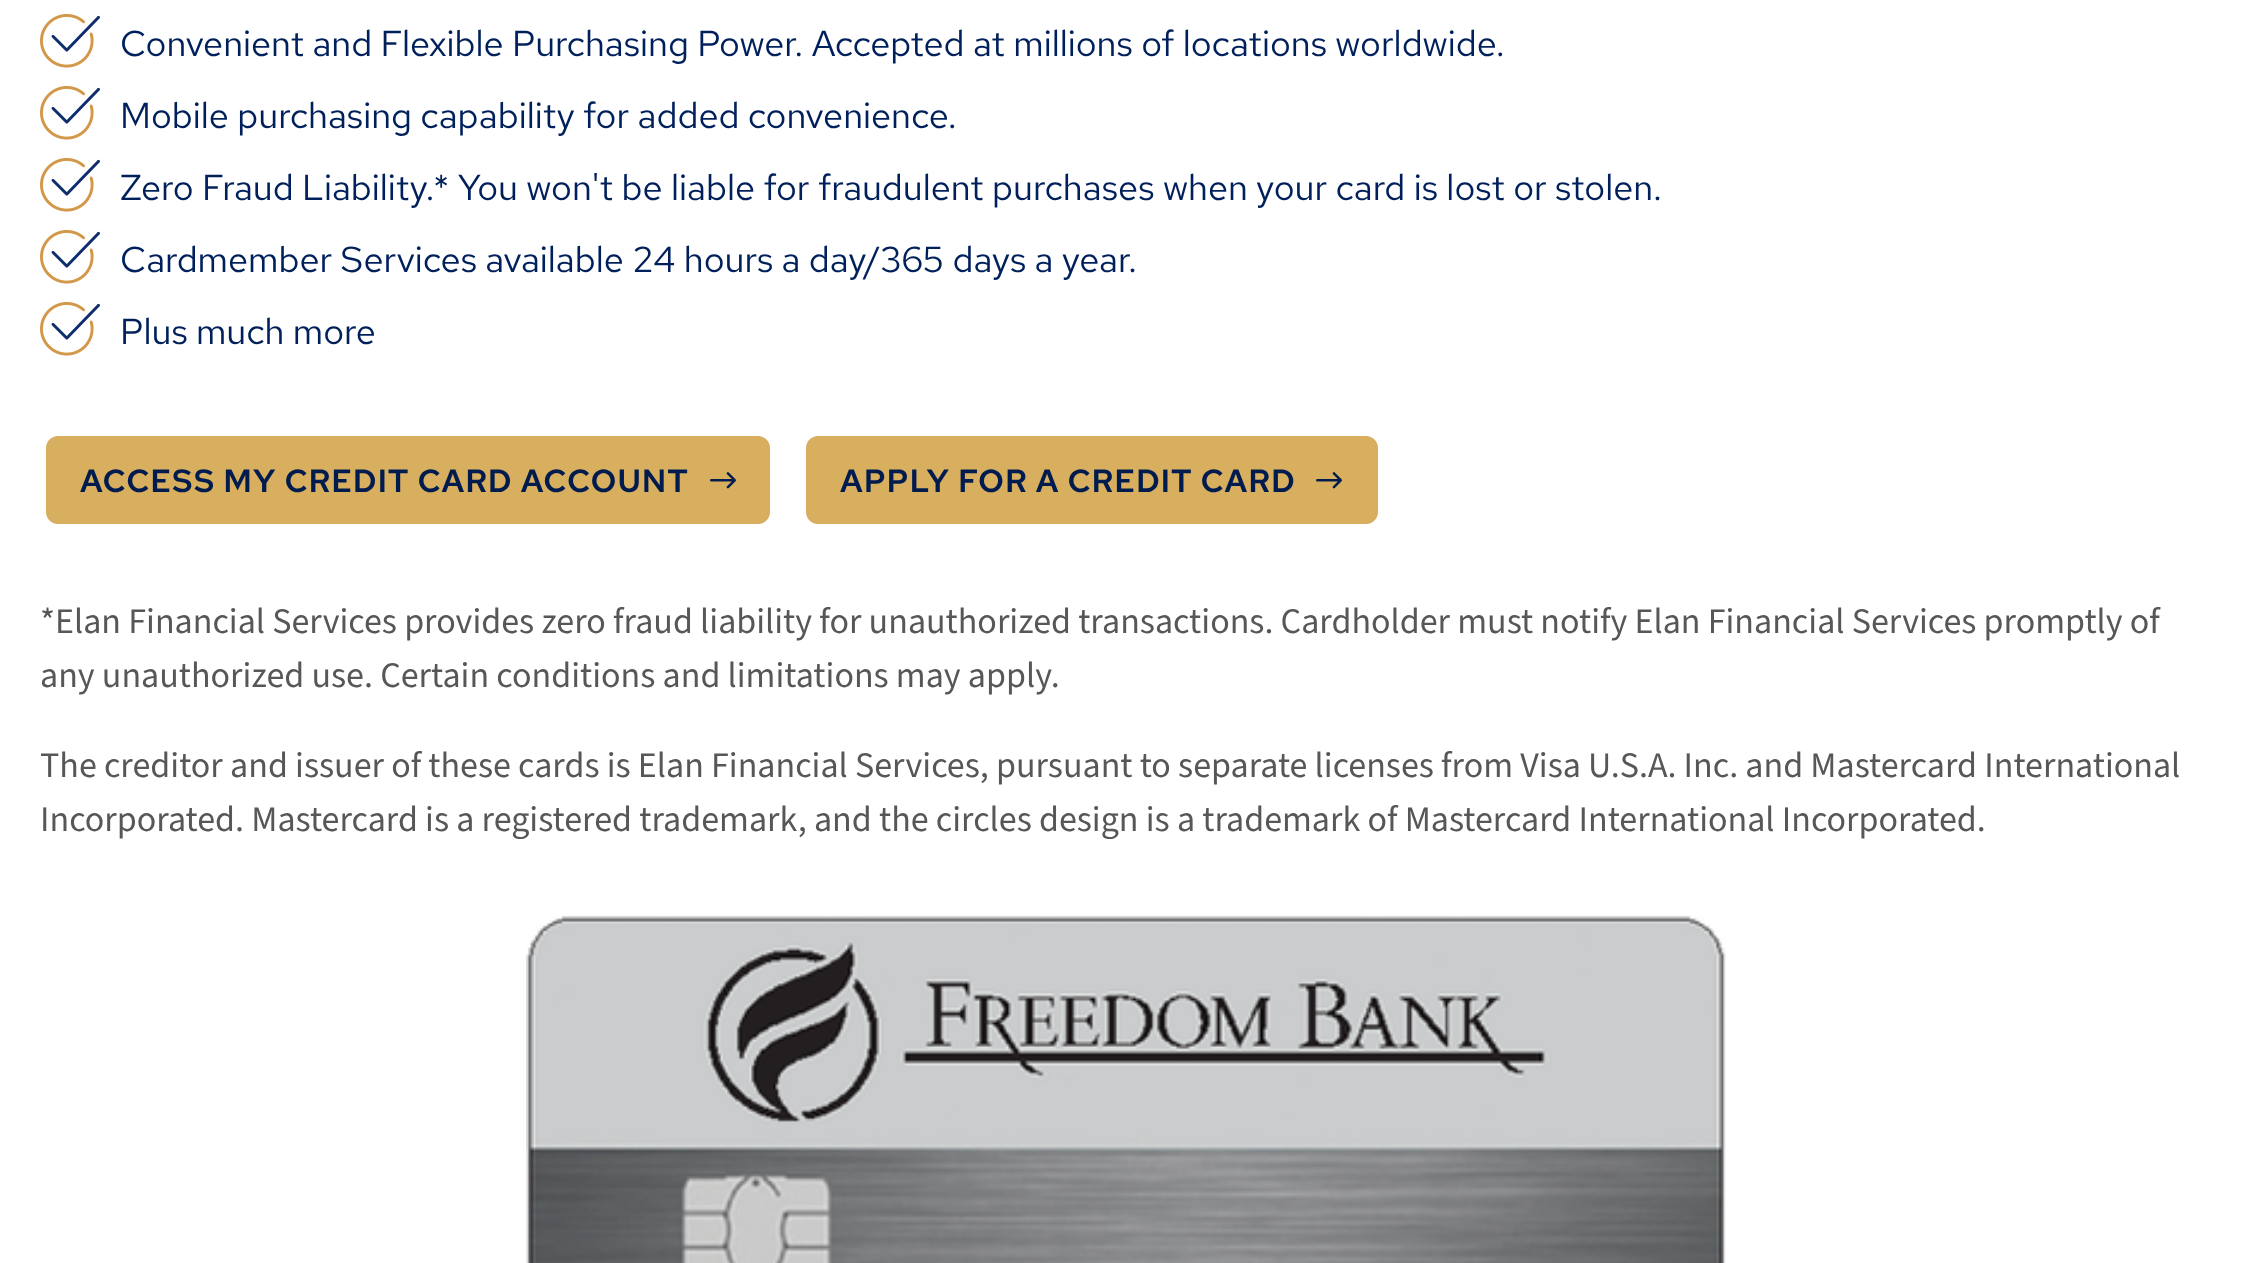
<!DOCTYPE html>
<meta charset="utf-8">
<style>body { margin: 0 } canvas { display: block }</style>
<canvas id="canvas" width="2249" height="1263"></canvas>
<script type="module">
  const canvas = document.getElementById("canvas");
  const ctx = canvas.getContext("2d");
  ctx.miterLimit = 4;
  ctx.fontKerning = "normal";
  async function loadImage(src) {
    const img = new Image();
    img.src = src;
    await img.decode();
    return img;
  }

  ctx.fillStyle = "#ffffff";
  ctx.fillRect(0, 0, 2249, 1263);
  ctx.drawImage(await loadImage("img1.png"), 40, 14, 60, 54);
  ctx.font = "36px Red Hat Text";
  ctx.fillStyle = "#00205c";
  ctx.fillText("Convenient and Flexible Purchasing Power. Accepted at millions of locations worldwide.", 120, 56);
  ctx.drawImage(await loadImage("img1.png"), 40, 86, 60, 54);
  ctx.fillText("Mobile purchasing capability for added convenience.", 120, 128);
  ctx.drawImage(await loadImage("img1.png"), 40, 158, 60, 54);
  ctx.fillText("Zero Fraud Liability.* You won't be liable for fraudulent purchases when your card is lost or stolen.", 120, 200);
  ctx.drawImage(await loadImage("img1.png"), 40, 230, 60, 54);
  ctx.fillText("Cardmember Services available 24 hours a day/365 days a year.", 120, 272);
  ctx.drawImage(await loadImage("img1.png"), 40, 302, 60, 54);
  ctx.fillText("Plus much more", 120, 344);
  ctx.fillStyle = "#d8ae5f";
  ctx.beginPath();
  ctx.roundRect(47, 437, 722, 86, 11);
  ctx.fill();
  ctx.strokeStyle = "#d8ae5f";
  ctx.lineWidth = 2;
  ctx.stroke();
  ctx.letterSpacing = "0.95px";
  ctx.font = "600 32px Red Hat Text";
  ctx.fillStyle = "#001b4e";
  ctx.fillText("ACCESS MY CREDIT CARD ACCOUNT", 80, 492);
  ctx.drawImage(await loadImage("img2.png"), 710, 472, 26, 17);
  ctx.fillStyle = "#d8ae5f";
  ctx.beginPath();
  ctx.roundRect(807, 437, 570, 86, 11);
  ctx.fill();
  ctx.stroke();
  ctx.fillStyle = "#001b4e";
  ctx.fillText("APPLY FOR A CREDIT CARD", 840, 492);
  ctx.drawImage(await loadImage("img2.png"), 1316, 472, 26, 17);
  ctx.letterSpacing = "0px";
  ctx.font = "36px 'Source Sans 3'";
  ctx.fillStyle = "#575757";
  ctx.fillText("*Elan Financial Services provides zero fraud liability for unauthorized transactions. Cardholder must notify Elan Financial Services promptly of", 40, 633);
  ctx.fillText("any unauthorized use. Certain conditions and limitations may apply.", 40, 687);
  ctx.fillText("The creditor and issuer of these cards is Elan Financial Services, pursuant to separate licenses from Visa U.S.A. Inc. and Mastercard International", 40, 777);
  ctx.fillText("Incorporated. Mastercard is a registered trademark, and the circles design is a trademark of Mastercard International Incorporated.", 40, 831);
  ctx.drawImage(await loadImage("img3.png"), 526, 915, 1200, 348);
</script>
